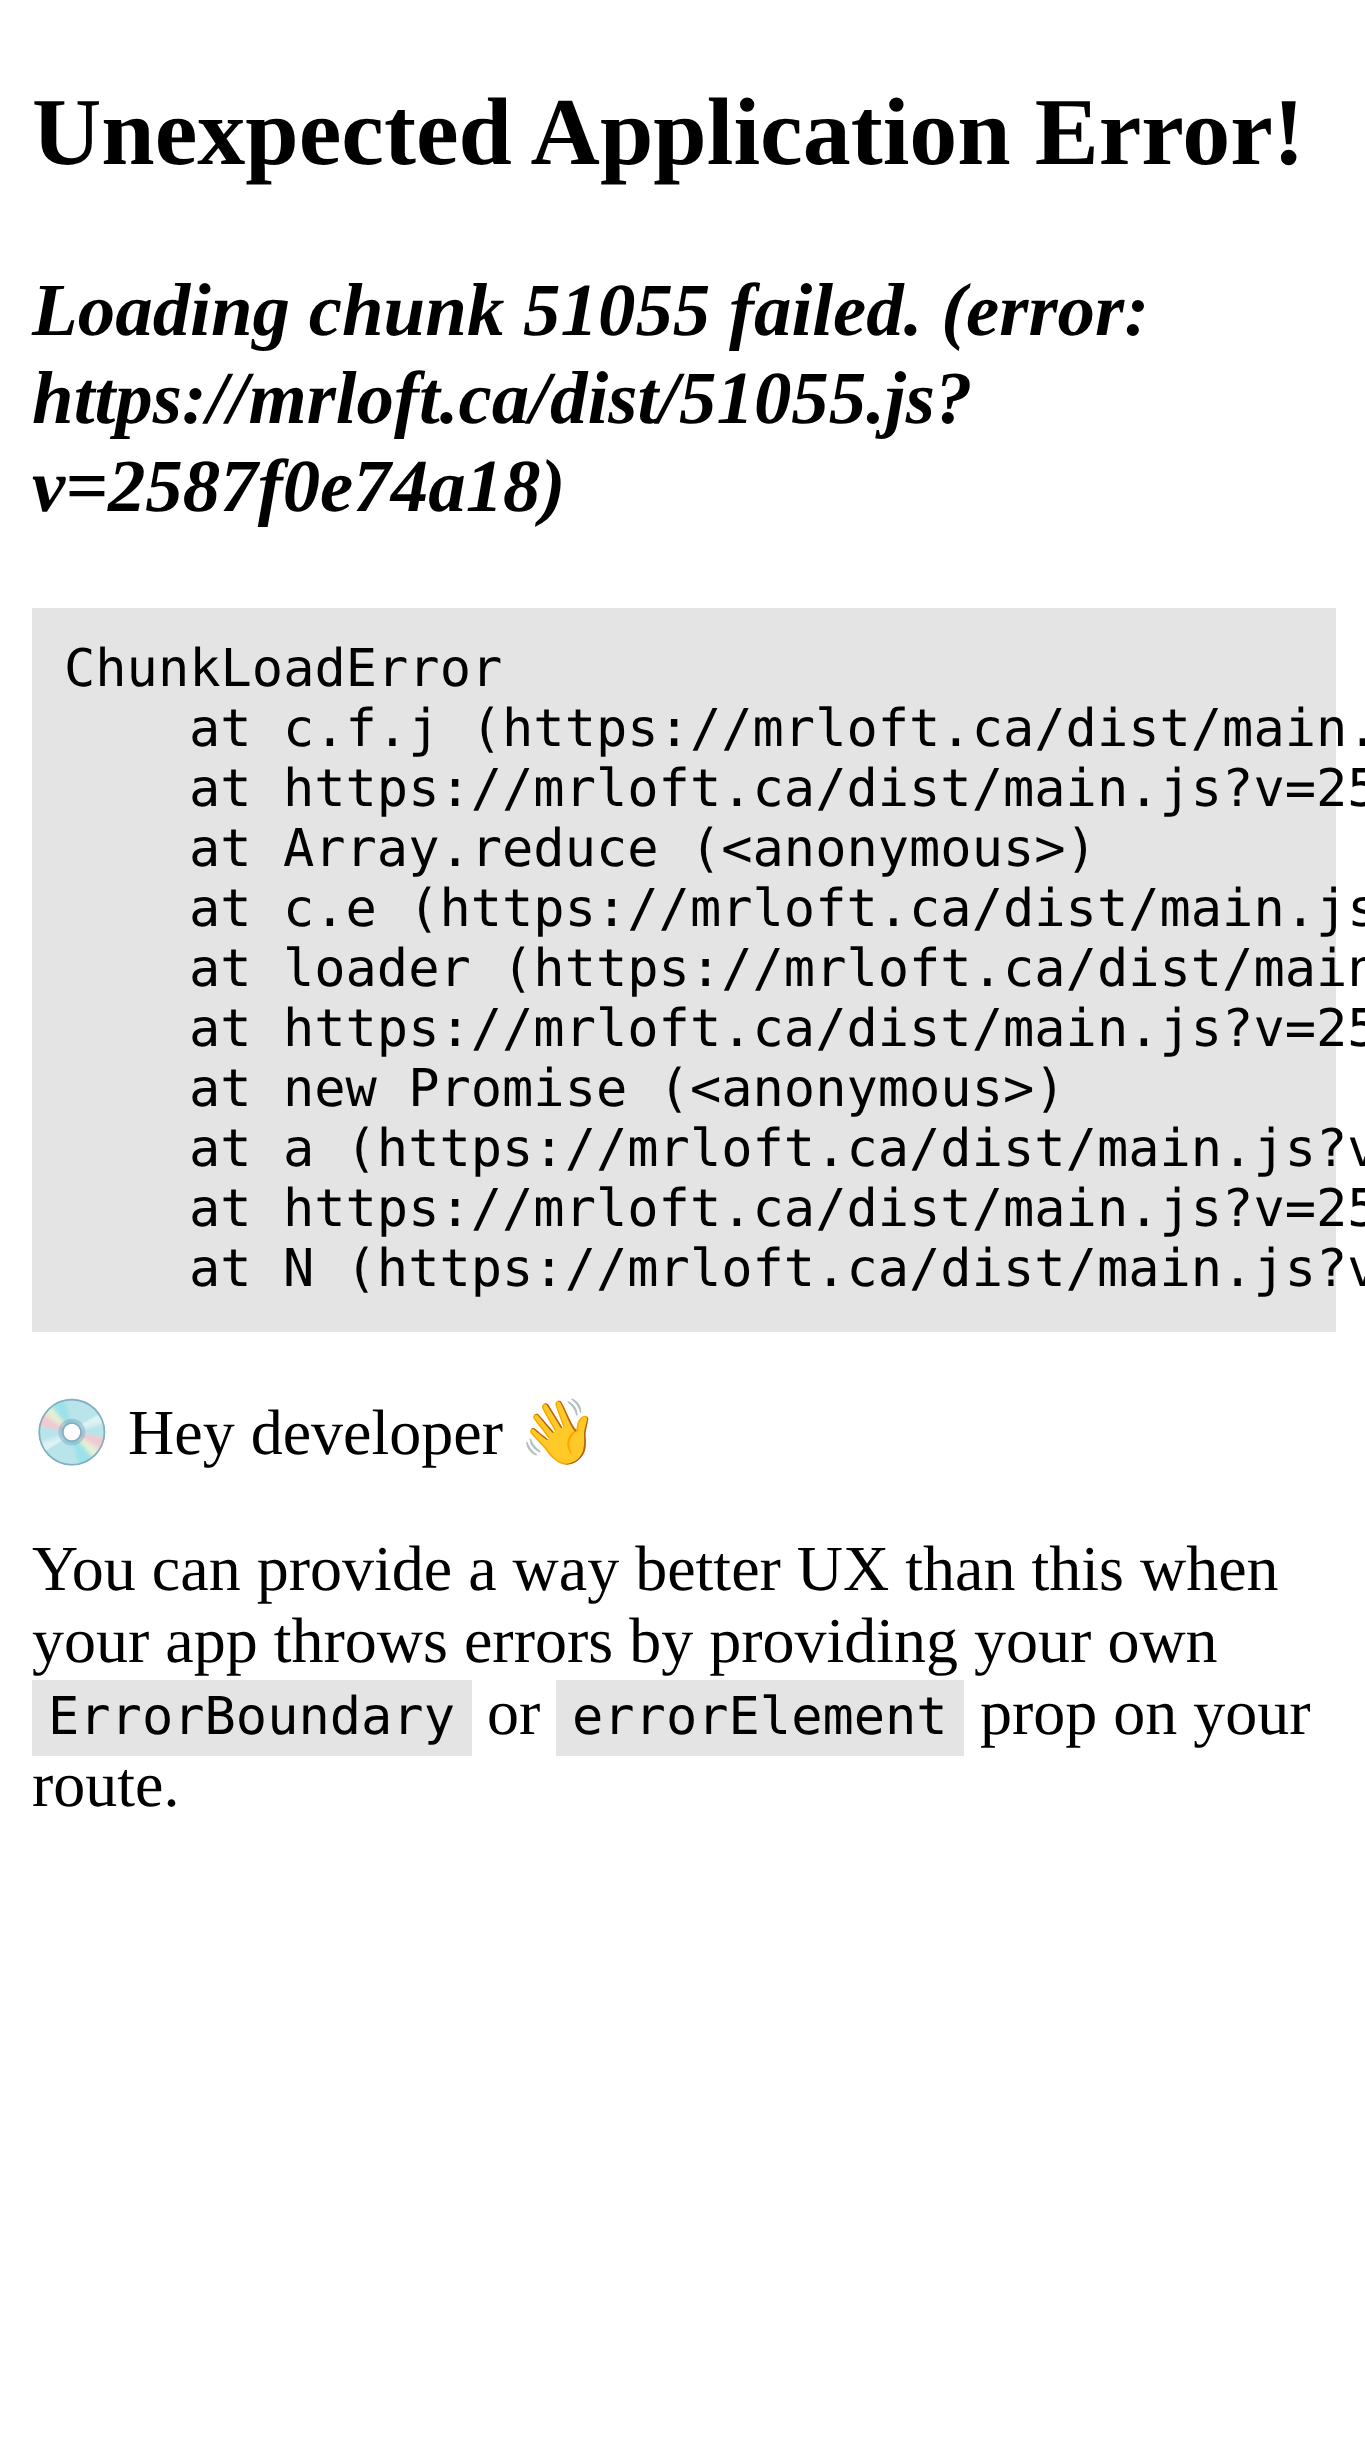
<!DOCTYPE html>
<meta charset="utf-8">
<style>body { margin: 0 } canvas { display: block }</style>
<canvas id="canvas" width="1365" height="2442"></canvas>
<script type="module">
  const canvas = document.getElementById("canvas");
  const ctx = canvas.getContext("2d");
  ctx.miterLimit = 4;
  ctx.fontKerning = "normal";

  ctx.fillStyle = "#ffffff";
  ctx.fillRect(0, 0, 1365, 2442);
  ctx.font = "bold 96px Liberation Serif";
  ctx.fillStyle = "#000000";
  ctx.fillText("Unexpected Application Error!", 32, 164);
  ctx.font = "italic bold 74.9px Liberation Serif";
  ctx.fillText("Loading chunk 51055 failed. (error:", 32, 335);
  ctx.fillText("https://mrloft.ca/dist/51055.js?", 32, 423);
  ctx.fillText("v=2587f0e74a18)", 32, 511);
  ctx.fillStyle = "#e4e4e4";
  ctx.fillRect(32, 608, 1304, 724);
  ctx.font = "52px DejaVu Sans Mono";
  ctx.fillStyle = "#000000";
  ctx.fillText("ChunkLoadError", 64, 686);
  ctx.fillText("at c.f.j (https://mrloft.ca/dist/main.", 189, 746);
  ctx.fillText("at https://mrloft.ca/dist/main.js?v=25", 189, 806);
  ctx.fillText("at Array.reduce (<anonymous>)", 189, 866);
  ctx.fillText("at c.e (https://mrloft.ca/dist/main.js", 189, 926);
  ctx.fillText("at loader (https://mrloft.ca/dist/main", 189, 986);
  ctx.fillText("at https://mrloft.ca/dist/main.js?v=25", 189, 1046);
  ctx.fillText("at new Promise (<anonymous>)", 189, 1106);
  ctx.fillText("at a (https://mrloft.ca/dist/main.js?v", 189, 1166);
  ctx.fillText("at https://mrloft.ca/dist/main.js?v=25", 189, 1226);
  ctx.fillText("at N (https://mrloft.ca/dist/main.js?v", 189, 1286);
  ctx.font = "64px Noto Color Emoji";
  ctx.fillText("💿", 32, 1454);
  ctx.font = "64px Liberation Serif";
  ctx.fillText("Hey developer", 128, 1454);
  ctx.font = "64px Noto Color Emoji";
  ctx.fillText("👋", 519, 1454);
  ctx.font = "64px Liberation Serif";
  ctx.fillText("You can provide a way better UX than this when", 32, 1590);
  ctx.fillText("your app throws errors by providing your own", 32, 1662);
  ctx.fillStyle = "#e4e4e4";
  ctx.fillRect(32, 1680, 440, 76);
  ctx.font = "52px DejaVu Sans Mono";
  ctx.fillStyle = "#000000";
  ctx.fillText("ErrorBoundary", 48, 1734);
  ctx.font = "64px Liberation Serif";
  ctx.fillText("or", 487, 1734);
  ctx.fillStyle = "#e4e4e4";
  ctx.fillRect(556, 1680, 408, 76);
  ctx.font = "52px DejaVu Sans Mono";
  ctx.fillStyle = "#000000";
  ctx.fillText("errorElement", 572, 1734);
  ctx.font = "64px Liberation Serif";
  ctx.fillText("prop on your", 980, 1734);
  ctx.fillText("route.", 32, 1806);
</script>
